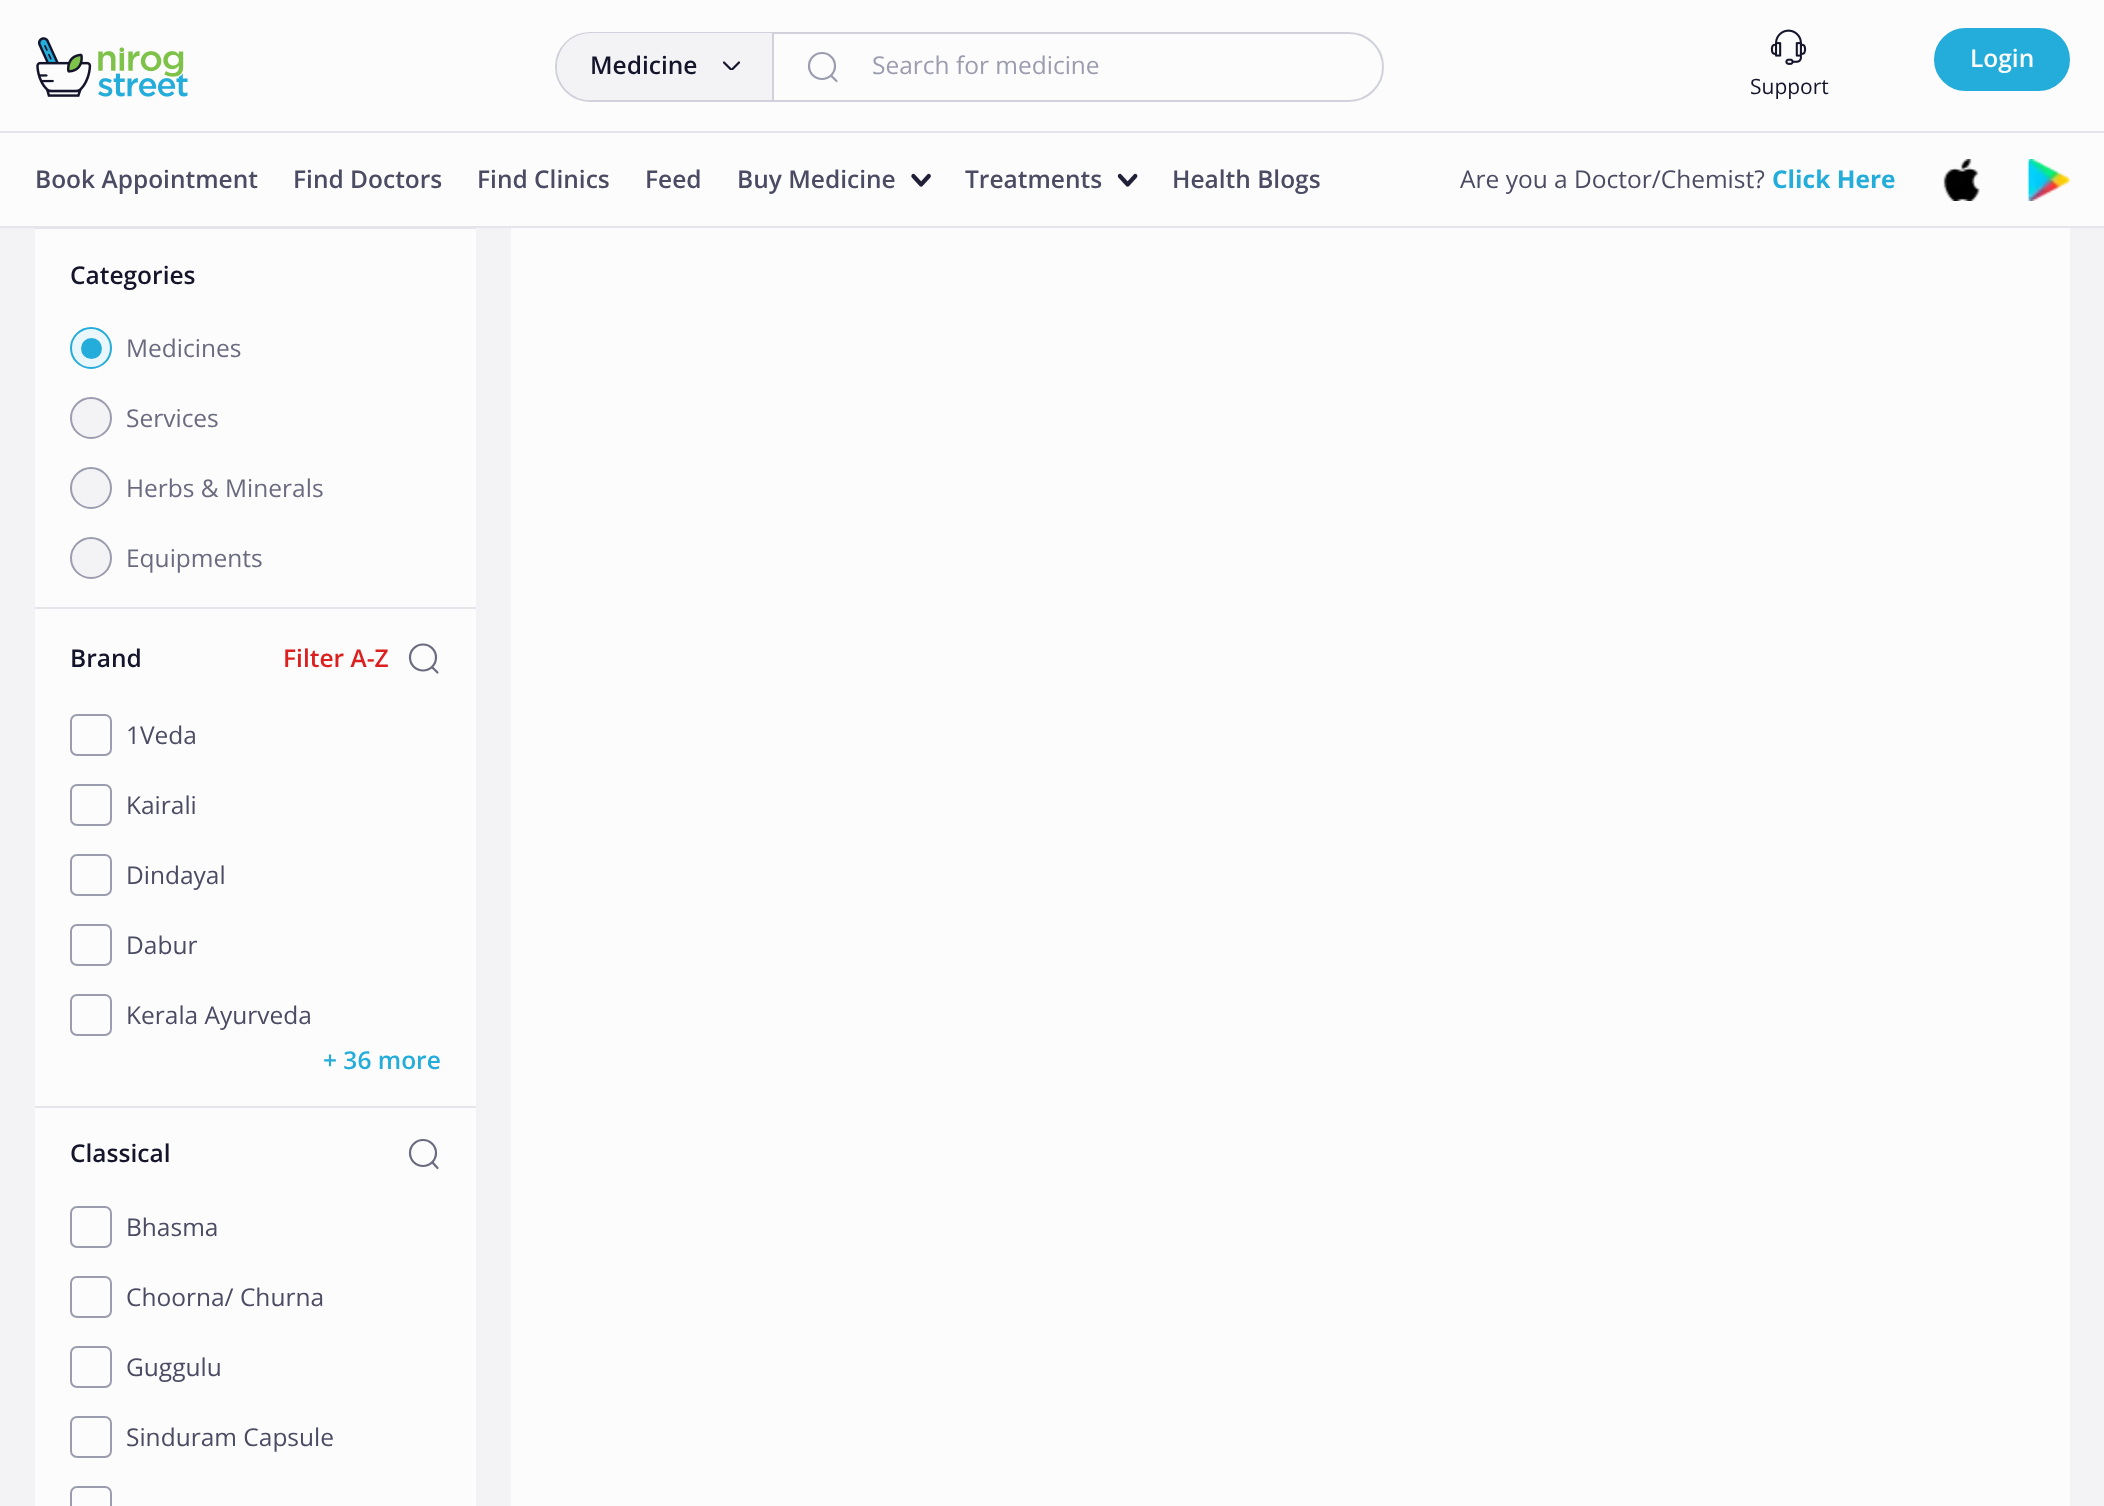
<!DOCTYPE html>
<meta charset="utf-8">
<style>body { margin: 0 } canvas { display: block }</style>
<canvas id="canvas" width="2104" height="1506"></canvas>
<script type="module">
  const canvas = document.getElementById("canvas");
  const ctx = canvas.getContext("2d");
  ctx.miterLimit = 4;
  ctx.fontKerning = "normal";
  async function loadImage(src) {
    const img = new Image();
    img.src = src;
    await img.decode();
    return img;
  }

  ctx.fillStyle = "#f3f3f6";
  ctx.fillRect(0, 0, 2104, 1506);
  ctx.fillStyle = "#fcfcfc";
  ctx.fillRect(0, 0, 2104, 131);
  ctx.fillStyle = "#e5e5eb";
  ctx.fillRect(0, 131, 2104, 2);
  ctx.drawImage(await loadImage("img1.png"), 36, 37, 152, 60);
  ctx.beginPath();
  ctx.roundRect(556, 33, 827, 68, 34);
  ctx.strokeStyle = "#d1d1db";
  ctx.lineWidth = 2;
  ctx.stroke();
  ctx.fillStyle = "#f3f3f6";
  ctx.beginPath();
  ctx.roundRect(557, 33, 215, 67, [33.5, 0, 0, 33.5]);
  ctx.fill();
  ctx.fillStyle = "#d1d1db";
  ctx.fillRect(772, 33, 2, 67);
  ctx.font = "600 24.5px Open Sans";
  ctx.fillStyle = "#14142b";
  ctx.fillText("Medicine", 590, 74);
  ctx.save();
  ctx.beginPath();
  ctx.rect(723, 61, 17, 9);
  ctx.clip();
  ctx.beginPath();
  ctx.moveTo(724, 62.5);
  ctx.lineTo(731.5, 70);
  ctx.lineTo(739, 62.5);
  ctx.strokeStyle = "#14142b";
  ctx.lineWidth = 2.2;
  ctx.lineCap = "round";
  ctx.lineJoin = "round";
  ctx.stroke();
  ctx.restore();
  ctx.beginPath();
  ctx.arc(822, 66, 13, 0, Math.PI * 2);
  ctx.strokeStyle = "#9c9caf";
  ctx.lineWidth = 2.2;
  ctx.stroke();
  ctx.beginPath();
  ctx.moveTo(831.5, 76);
  ctx.lineTo(836.5, 81);
  ctx.lineCap = "round";
  ctx.lineJoin = "round";
  ctx.stroke();
  ctx.font = "24.5px Open Sans";
  ctx.fillStyle = "#9c9caf";
  ctx.fillText("Search for medicine", 872, 74);
  ctx.fillStyle = "#24acda";
  ctx.beginPath();
  ctx.roundRect(1936, 30, 132, 59, 29.5);
  ctx.fill();
  ctx.strokeStyle = "#24acda";
  ctx.lineWidth = 4;
  ctx.lineJoin = "miter";
  ctx.stroke();
  ctx.font = "600 24.5px Open Sans";
  ctx.fillStyle = "#fcfcfc";
  ctx.fillText("Login", 1970, 67);
  ctx.drawImage(await loadImage("img2.png"), 1770, 29, 37, 36);
  ctx.font = "21px Open Sans";
  ctx.fillStyle = "#14142b";
  ctx.fillText("Support", 1750, 94);
  ctx.fillStyle = "#fcfcfc";
  ctx.fillRect(0, 133, 2104, 93);
  ctx.fillStyle = "#e5e5eb";
  ctx.fillRect(0, 226, 2104, 2);
  ctx.font = "600 24.5px Open Sans";
  ctx.fillStyle = "#4b4b63";
  ctx.fillText("Book Appointment", 35, 188);
  ctx.fillText("Find Doctors", 293, 188);
  ctx.fillText("Find Clinics", 477, 188);
  ctx.fillText("Feed", 645, 188);
  ctx.fillText("Buy Medicine", 737, 188);
  ctx.drawImage(await loadImage("img3.png"), 911, 173, 20, 14);
  ctx.fillText("Treatments", 965, 188);
  ctx.drawImage(await loadImage("img4.png"), 1117, 173, 21, 14);
  ctx.fillText("Health Blogs", 1172, 188);
  ctx.font = "24.5px Open Sans";
  ctx.fillText("Are you a Doctor/Chemist?", 1460, 188);
  ctx.font = "bold 24.5px Open Sans";
  ctx.fillStyle = "#24acda";
  ctx.fillText("Click Here", 1772, 188);
  ctx.drawImage(await loadImage("img5.png"), 1943, 159, 37, 42);
  ctx.drawImage(await loadImage("img6.png"), 2027, 159, 44, 42);
  ctx.fillStyle = "#fcfcfc";
  ctx.fillRect(35, 609, 441, 897);
  ctx.fillStyle = "#e5e5eb";
  ctx.fillRect(35, 228, 441, 1);
  ctx.fillStyle = "#fcfcfc";
  ctx.fillRect(35, 229, 441, 378);
  ctx.fillStyle = "#e5e5eb";
  ctx.fillRect(35, 607, 441, 2);
  ctx.font = "600 24.5px Open Sans";
  ctx.fillStyle = "#14142b";
  ctx.fillText("Categories", 70, 284);
  ctx.fillStyle = "#e9f6fb";
  ctx.beginPath();
  ctx.arc(91, 348, 20, 0, Math.PI * 2);
  ctx.fill();
  ctx.lineWidth = 2;
  ctx.stroke();
  ctx.fillStyle = "#24acda";
  ctx.beginPath();
  ctx.arc(91.5, 348.5, 10.5, 0, Math.PI * 2);
  ctx.fill();
  ctx.font = "24.5px Open Sans";
  ctx.fillStyle = "#6b6b80";
  ctx.fillText("Medicines", 126, 357);
  ctx.fillStyle = "#f3f3f6";
  ctx.beginPath();
  ctx.arc(91, 418, 20, 0, Math.PI * 2);
  ctx.fill();
  ctx.strokeStyle = "#9c9caf";
  ctx.stroke();
  ctx.fillStyle = "#6b6b80";
  ctx.fillText("Services", 126, 427);
  ctx.fillStyle = "#f3f3f6";
  ctx.beginPath();
  ctx.arc(91, 488, 20, 0, Math.PI * 2);
  ctx.fill();
  ctx.stroke();
  ctx.fillStyle = "#6b6b80";
  ctx.fillText("Herbs & Minerals", 126, 497);
  ctx.fillStyle = "#f3f3f6";
  ctx.beginPath();
  ctx.arc(91, 558, 20, 0, Math.PI * 2);
  ctx.fill();
  ctx.stroke();
  ctx.fillStyle = "#6b6b80";
  ctx.fillText("Equipments", 126, 567);
  ctx.fillStyle = "#e5e5eb";
  ctx.fillRect(35, 1106, 441, 2);
  ctx.font = "600 24.5px Open Sans";
  ctx.fillStyle = "#14142b";
  ctx.fillText("Brand", 70, 667);
  ctx.fillStyle = "#dc2020";
  ctx.fillText("Filter A-Z", 283, 667);
  ctx.beginPath();
  ctx.arc(423, 657.5, 13, 0, Math.PI * 2);
  ctx.strokeStyle = "#6b6b80";
  ctx.lineWidth = 2.2;
  ctx.stroke();
  ctx.beginPath();
  ctx.moveTo(432.5, 667.5);
  ctx.lineTo(437.5, 672.5);
  ctx.lineJoin = "round";
  ctx.stroke();
  ctx.beginPath();
  ctx.roundRect(71, 715, 40, 40, 6);
  ctx.strokeStyle = "#9c9caf";
  ctx.lineWidth = 2;
  ctx.lineJoin = "miter";
  ctx.stroke();
  ctx.font = "24.5px Open Sans";
  ctx.fillStyle = "#4b4b63";
  ctx.fillText("1Veda", 126, 744);
  ctx.beginPath();
  ctx.roundRect(71, 785, 40, 40, 6);
  ctx.stroke();
  ctx.fillText("Kairali", 126, 814);
  ctx.beginPath();
  ctx.roundRect(71, 855, 40, 40, 6);
  ctx.stroke();
  ctx.fillText("Dindayal", 126, 884);
  ctx.beginPath();
  ctx.roundRect(71, 925, 40, 40, 6);
  ctx.stroke();
  ctx.fillText("Dabur", 126, 954);
  ctx.beginPath();
  ctx.roundRect(71, 995, 40, 40, 6);
  ctx.stroke();
  ctx.fillText("Kerala Ayurveda", 126, 1024);
  ctx.font = "600 24.5px Open Sans";
  ctx.fillStyle = "#24acda";
  ctx.fillText("+ 36 more", 323, 1069);
  ctx.fillStyle = "#14142b";
  ctx.fillText("Classical", 70, 1162);
  ctx.beginPath();
  ctx.arc(423, 1153, 13, 0, Math.PI * 2);
  ctx.strokeStyle = "#6b6b80";
  ctx.lineWidth = 2.2;
  ctx.stroke();
  ctx.beginPath();
  ctx.moveTo(432.5, 1162.5);
  ctx.lineTo(437.5, 1168);
  ctx.lineJoin = "round";
  ctx.stroke();
  ctx.beginPath();
  ctx.roundRect(71, 1207, 40, 40, 6);
  ctx.strokeStyle = "#9c9caf";
  ctx.lineWidth = 2;
  ctx.lineJoin = "miter";
  ctx.stroke();
  ctx.font = "24.5px Open Sans";
  ctx.fillStyle = "#4b4b63";
  ctx.fillText("Bhasma", 126, 1236);
  ctx.beginPath();
  ctx.roundRect(71, 1277, 40, 40, 6);
  ctx.stroke();
  ctx.fillText("Choorna/ Churna", 126, 1306);
  ctx.beginPath();
  ctx.roundRect(71, 1347, 40, 40, 6);
  ctx.stroke();
  ctx.fillText("Guggulu", 126, 1376);
  ctx.beginPath();
  ctx.roundRect(71, 1417, 40, 40, 6);
  ctx.stroke();
  ctx.fillText("Sinduram Capsule", 126, 1446);
  ctx.beginPath();
  ctx.roundRect(71, 1487, 40, 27, 6);
  ctx.stroke();
  ctx.fillStyle = "#fcfcfc";
  ctx.fillRect(511, 228, 1559, 1278);
</script>
